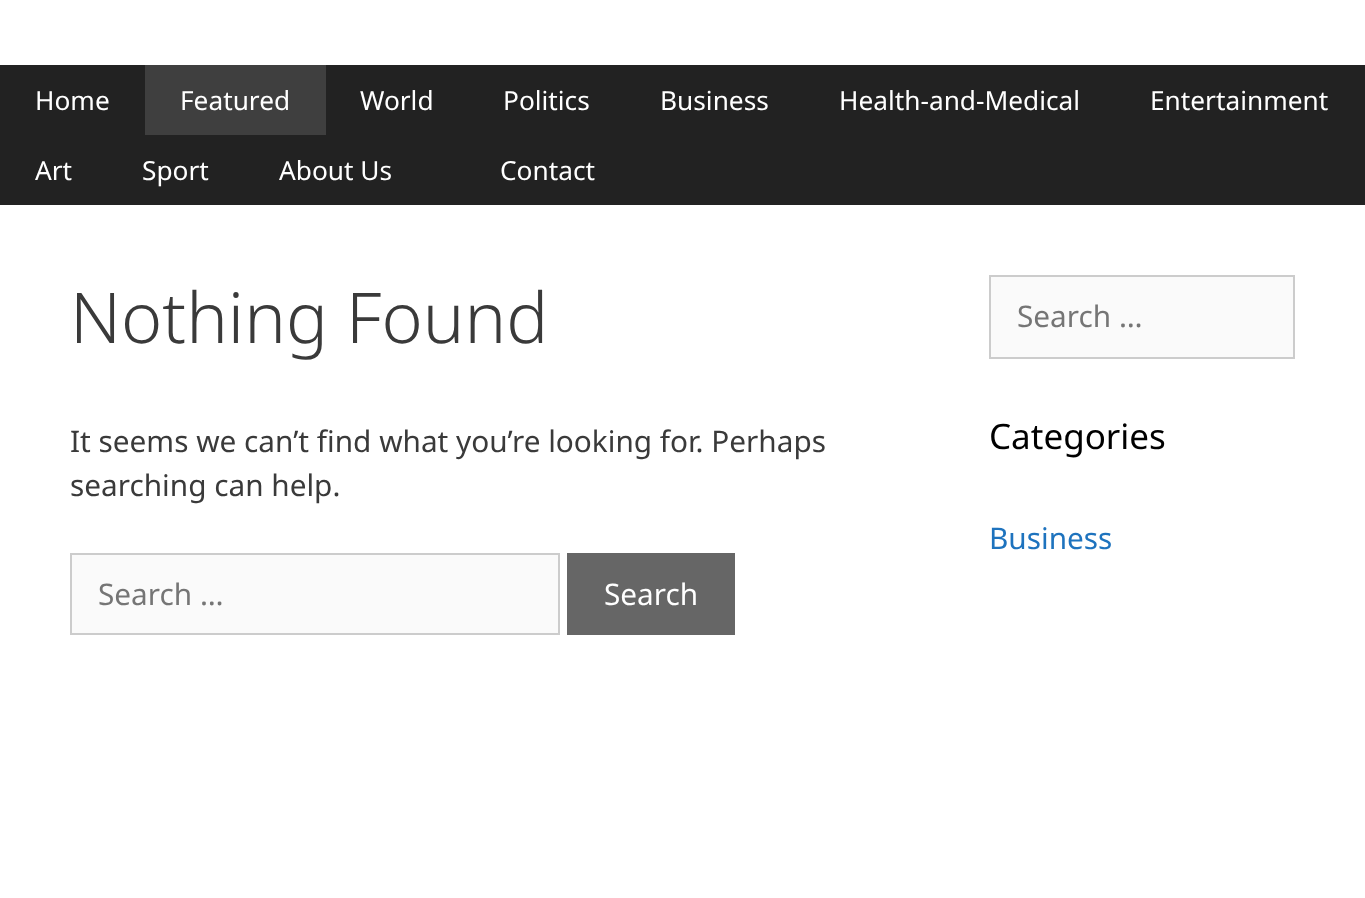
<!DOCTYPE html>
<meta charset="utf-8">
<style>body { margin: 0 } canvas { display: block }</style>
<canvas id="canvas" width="1365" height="898"></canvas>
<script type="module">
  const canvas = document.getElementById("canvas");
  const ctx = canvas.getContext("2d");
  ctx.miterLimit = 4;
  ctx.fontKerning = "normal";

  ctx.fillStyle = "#222222";
  ctx.fillRect(0, 0, 1365, 898);
  ctx.fillStyle = "#ffffff";
  ctx.fillRect(0, 0, 1365, 65);
  ctx.font = "26.25px Noto Sans";
  ctx.fillText("Home", 35, 110);
  ctx.fillStyle = "#3f3f3f";
  ctx.fillRect(145, 65, 181, 70);
  ctx.fillStyle = "#ffffff";
  ctx.fillText("Featured", 180, 110);
  ctx.fillText("World", 360, 110);
  ctx.fillText("Politics", 503, 110);
  ctx.fillText("Business", 660, 110);
  ctx.fillText("Health-and-Medical", 839, 110);
  ctx.fillText("Entertainment", 1150, 110);
  ctx.fillText("Art", 35, 180);
  ctx.fillText("Sport", 142, 180);
  ctx.fillText("About Us", 279, 180);
  ctx.fillText("Contact", 500, 180);
  ctx.fillRect(0, 205, 1365, 693);
  ctx.font = "300 70px Noto Sans";
  ctx.fillStyle = "#3a3a3a";
  ctx.fillText("Nothing Found", 70, 343);
  ctx.font = "29.75px Noto Sans";
  ctx.fillText("It seems we can’t find what you’re looking for. Perhaps", 70, 452);
  ctx.fillText("searching can help.", 70, 496);
  ctx.fillStyle = "#fafafa";
  ctx.beginPath();
  ctx.rect(71, 554, 488, 80);
  ctx.fill();
  ctx.strokeStyle = "#cccccc";
  ctx.lineWidth = 2;
  ctx.stroke();
  ctx.fillStyle = "#757575";
  ctx.fillText("Search …", 98, 605);
  ctx.fillStyle = "#666666";
  ctx.fillRect(567, 553, 168, 82);
  ctx.fillStyle = "#ffffff";
  ctx.fillText("Search", 604, 605);
  ctx.fillStyle = "#fafafa";
  ctx.beginPath();
  ctx.rect(990, 276, 304, 82);
  ctx.fill();
  ctx.stroke();
  ctx.fillStyle = "#757575";
  ctx.fillText("Search …", 1017, 327);
  ctx.font = "35px Noto Sans";
  ctx.fillStyle = "#000000";
  ctx.fillText("Categories", 989, 449);
  ctx.font = "29.75px Noto Sans";
  ctx.fillStyle = "#1e73be";
  ctx.fillText("Business", 989, 549);
</script>
